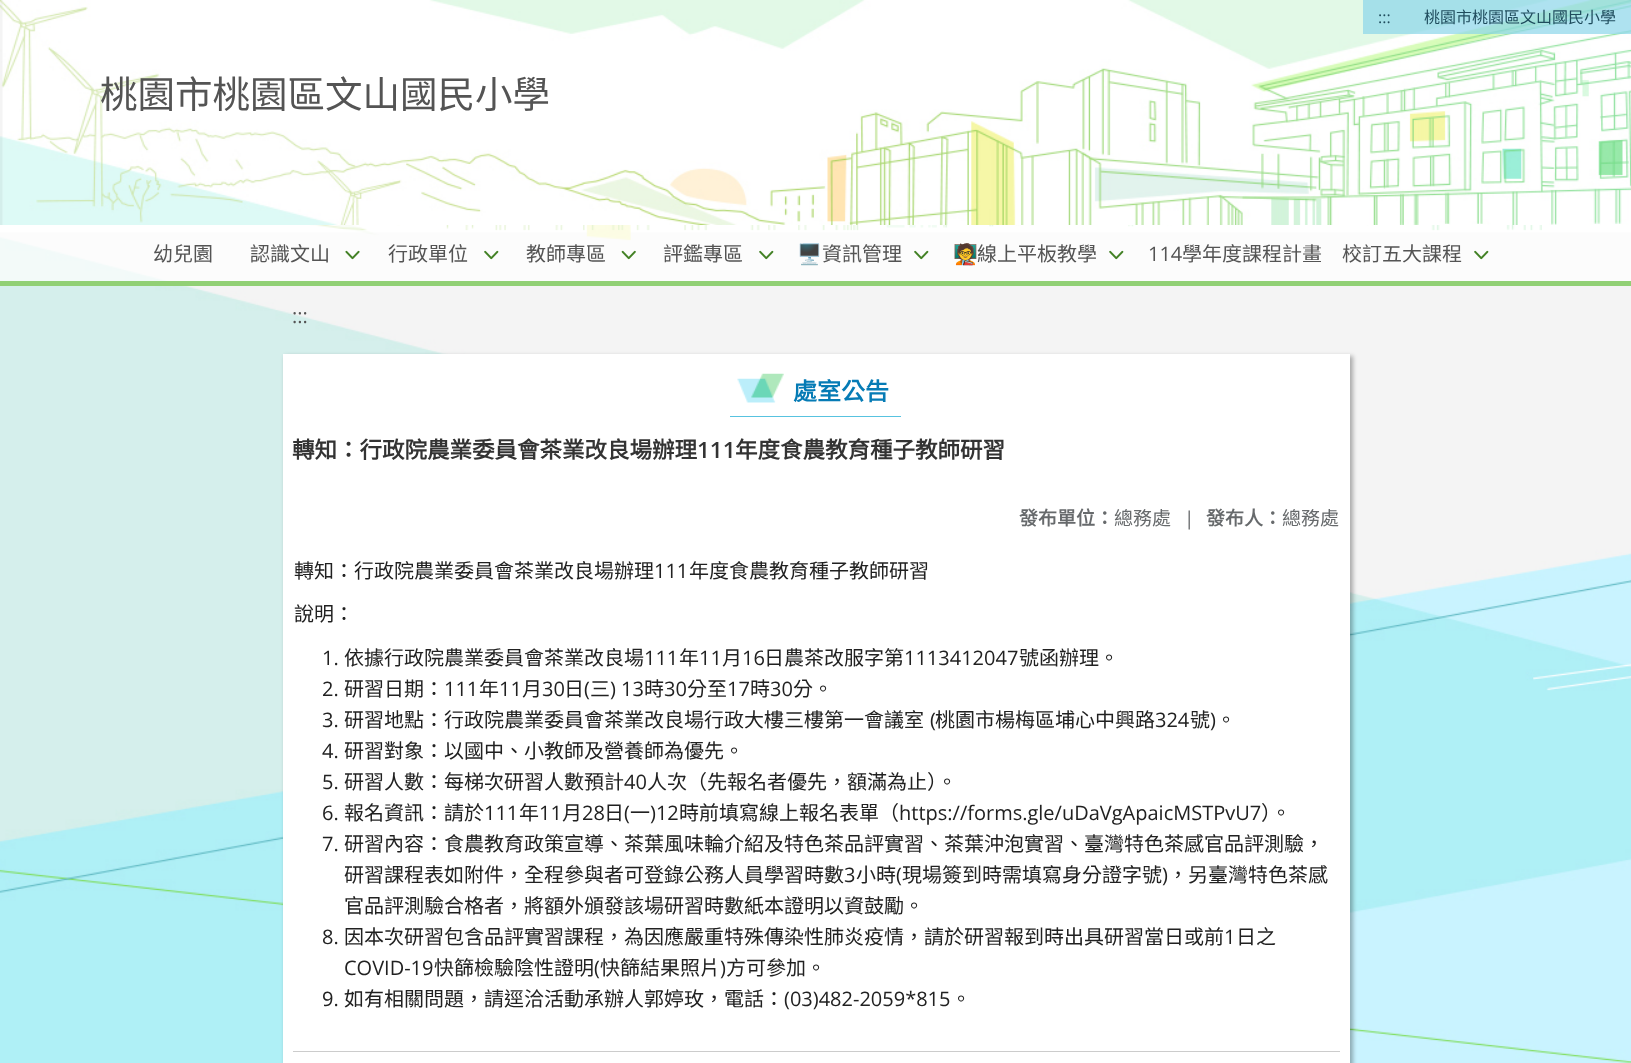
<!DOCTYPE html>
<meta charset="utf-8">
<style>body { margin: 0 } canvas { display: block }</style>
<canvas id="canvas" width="1631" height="1063"></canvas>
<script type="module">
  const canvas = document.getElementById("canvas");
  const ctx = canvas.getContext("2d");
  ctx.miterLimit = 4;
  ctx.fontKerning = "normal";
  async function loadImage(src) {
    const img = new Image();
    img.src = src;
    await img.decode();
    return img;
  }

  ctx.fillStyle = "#ffffff";
  ctx.fillRect(0, 0, 1631, 1063);
  ctx.drawImage(await loadImage("img1.png"), 0, 225, 1631, 838);
  ctx.drawImage(await loadImage("img2.png"), 0, 0, 1631, 225);
  ctx.fillStyle = "rgba(140, 213, 234, 0.7)";
  ctx.fillRect(1363, 0, 268, 34);
  ctx.font = "16px Open Sans";
  ctx.fillStyle = "#1f4c5d";
  ctx.fillText(":::", 1378, 23);
  ctx.font = "16px Noto Sans CJK TC";
  ctx.fillText("桃園市桃園區文山國民小學", 1424, 23);
  ctx.font = "37.5px Noto Sans CJK TC";
  ctx.fillStyle = "#545454";
  ctx.fillText("桃園市桃園區文山國民小學", 100, 108);
  ctx.fillStyle = "rgba(255, 255, 255, 0.7)";
  ctx.fillRect(0, 225, 1631, 56);
  ctx.fillStyle = "#91d075";
  ctx.fillRect(0, 281, 1631, 5);
  ctx.font = "20px Noto Sans CJK TC";
  ctx.fillStyle = "#545454";
  ctx.fillText("幼兒園", 153, 261);
  ctx.fillText("認識文山", 250, 261);
  ctx.drawImage(await loadImage("img3.png"), 345, 250, 15, 10);
  ctx.fillText("行政單位", 388, 261);
  ctx.drawImage(await loadImage("img4.png"), 484, 250, 15, 10);
  ctx.fillText("教師專區", 526, 261);
  ctx.drawImage(await loadImage("img5.png"), 621, 250, 15, 10);
  ctx.fillText("評鑑專區", 663, 261);
  ctx.drawImage(await loadImage("img4.png"), 759, 250, 15, 10);
  ctx.font = "20px Noto Color Emoji";
  ctx.fillText("🖥️", 797, 261);
  ctx.font = "20px Noto Sans CJK TC";
  ctx.fillText("資訊管理", 822, 261);
  ctx.drawImage(await loadImage("img4.png"), 914, 250, 15, 10);
  ctx.font = "20px Noto Color Emoji";
  ctx.fillText("🧑‍🏫", 953, 261);
  ctx.font = "20px Noto Sans CJK TC";
  ctx.fillText("線上平板教學", 977, 261);
  ctx.drawImage(await loadImage("img4.png"), 1109, 250, 15, 10);
  ctx.font = "20px Open Sans";
  ctx.fillText("114", 1148, 261);
  ctx.font = "20px Noto Sans CJK TC";
  ctx.fillText("學年度課程計畫", 1182, 261);
  ctx.fillText("校訂五大課程", 1342, 261);
  ctx.drawImage(await loadImage("img4.png"), 1474, 250, 15, 10);
  ctx.font = "20px Open Sans";
  ctx.fillText(":::", 292, 323);
  ctx.fillStyle = "rgba(0, 0, 0, 0.3)";
  ctx.filter = "blur(2px)";
  ctx.beginPath();
  ctx.rect(285, 356, 1068, 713);
  ctx.fill();
  ctx.filter = "none";
  ctx.fillStyle = "#ffffff";
  ctx.fillRect(283, 354, 1067, 709);
  ctx.fillStyle = "#58c3e0";
  ctx.fillRect(730, 416, 171, 1);
  ctx.drawImage(await loadImage("img6.png"), 737, 373, 47, 30);
  ctx.font = "bold 24px Noto Sans CJK TC";
  ctx.fillStyle = "#057bb5";
  ctx.fillText("處室公告", 793, 400);
  ctx.font = "bold 22.5px Noto Sans CJK TC";
  ctx.fillStyle = "#333333";
  ctx.fillText("轉知：行政院農業委員會茶業改良場辦理", 292, 458);
  ctx.font = "600 22.5px Open Sans";
  ctx.fillText("111", 697, 458);
  ctx.font = "bold 22.5px Noto Sans CJK TC";
  ctx.fillText("年度食農教育種子教師研習", 735, 458);
  ctx.font = "bold 19px Noto Sans CJK TC";
  ctx.fillStyle = "#676a6c";
  ctx.fillText("發布單位：", 1019, 525);
  ctx.font = "19px Noto Sans CJK TC";
  ctx.fillText("總務處", 1114, 525);
  ctx.font = "19px Open Sans";
  ctx.fillText("|", 1184, 525);
  ctx.font = "bold 19px Noto Sans CJK TC";
  ctx.fillText("發布人：", 1206, 525);
  ctx.font = "19px Noto Sans CJK TC";
  ctx.fillText("總務處", 1282, 525);
  ctx.font = "20px Noto Sans CJK TC";
  ctx.fillStyle = "#212121";
  ctx.fillText("轉知：行政院農業委員會茶業改良場辦理", 294, 578);
  ctx.font = "20px Open Sans";
  ctx.fillText("111", 654, 578);
  ctx.font = "20px Noto Sans CJK TC";
  ctx.fillText("年度食農教育種子教師研習", 689, 578);
  ctx.fillText("說明：", 294, 621);
  ctx.font = "20px Open Sans";
  ctx.fillText("1.", 322, 665);
  ctx.font = "20px Noto Sans CJK TC";
  ctx.fillText("依據行政院農業委員會茶業改良場", 344, 665);
  ctx.font = "20px Open Sans";
  ctx.fillText("111", 644, 665);
  ctx.font = "20px Noto Sans CJK TC";
  ctx.fillText("年", 679, 665);
  ctx.font = "20px Open Sans";
  ctx.fillText("11", 699, 665);
  ctx.font = "20px Noto Sans CJK TC";
  ctx.fillText("月", 722, 665);
  ctx.font = "20px Open Sans";
  ctx.fillText("16", 742, 665);
  ctx.font = "20px Noto Sans CJK TC";
  ctx.fillText("日農茶改服字第", 764, 665);
  ctx.font = "20px Open Sans";
  ctx.fillText("1113412047", 904, 665);
  ctx.font = "20px Noto Sans CJK TC";
  ctx.fillText("號函辦理。", 1019, 665);
  ctx.font = "20px Open Sans";
  ctx.fillText("2.", 322, 696);
  ctx.font = "20px Noto Sans CJK TC";
  ctx.fillText("研習日期：", 344, 696);
  ctx.font = "20px Open Sans";
  ctx.fillText("111", 444, 696);
  ctx.font = "20px Noto Sans CJK TC";
  ctx.fillText("年", 479, 696);
  ctx.font = "20px Open Sans";
  ctx.fillText("11", 499, 696);
  ctx.font = "20px Noto Sans CJK TC";
  ctx.fillText("月", 522, 696);
  ctx.font = "20px Open Sans";
  ctx.fillText("30", 542, 696);
  ctx.font = "20px Noto Sans CJK TC";
  ctx.fillText("日", 564, 696);
  ctx.font = "20px Open Sans";
  ctx.fillText("(", 584, 696);
  ctx.font = "20px Noto Sans CJK TC";
  ctx.fillText("三", 590, 696);
  ctx.font = "20px Open Sans";
  ctx.fillText(") 13", 610, 696);
  ctx.font = "20px Noto Sans CJK TC";
  ctx.fillText("時", 644, 696);
  ctx.font = "20px Open Sans";
  ctx.fillText("30", 664, 696);
  ctx.font = "20px Noto Sans CJK TC";
  ctx.fillText("分至", 687, 696);
  ctx.font = "20px Open Sans";
  ctx.fillText("17", 727, 696);
  ctx.font = "20px Noto Sans CJK TC";
  ctx.fillText("時", 750, 696);
  ctx.font = "20px Open Sans";
  ctx.fillText("30", 770, 696);
  ctx.font = "20px Noto Sans CJK TC";
  ctx.fillText("分。", 793, 696);
  ctx.font = "20px Open Sans";
  ctx.fillText("3.", 322, 727);
  ctx.font = "20px Noto Sans CJK TC";
  ctx.fillText("研習地點：行政院農業委員會茶業改良場行政大樓三樓第一會議室", 344, 727);
  ctx.font = "20px Open Sans";
  ctx.fillText("(", 930, 727);
  ctx.font = "20px Noto Sans CJK TC";
  ctx.fillText("桃園市楊梅區埔心中興路", 935, 727);
  ctx.font = "20px Open Sans";
  ctx.fillText("324", 1155, 727);
  ctx.font = "20px Noto Sans CJK TC";
  ctx.fillText("號", 1190, 727);
  ctx.font = "20px Open Sans";
  ctx.fillText(")", 1210, 727);
  ctx.font = "20px Noto Sans CJK TC";
  ctx.fillText("。", 1216, 727);
  ctx.font = "20px Open Sans";
  ctx.fillText("4.", 322, 758);
  ctx.font = "20px Noto Sans CJK TC";
  ctx.fillText("研習對象：以國中、小教師及營養師為優先。", 344, 758);
  ctx.font = "20px Open Sans";
  ctx.fillText("5.", 322, 789);
  ctx.font = "20px Noto Sans CJK TC";
  ctx.fillText("研習人數：每梯次研習人數預計", 344, 789);
  ctx.font = "20px Open Sans";
  ctx.fillText("40", 624, 789);
  ctx.font = "20px Noto Sans CJK TC";
  ctx.fillText("人次（先報名者優先，額滿為止）。", 647, 789);
  ctx.font = "20px Open Sans";
  ctx.fillText("6.", 322, 820);
  ctx.font = "20px Noto Sans CJK TC";
  ctx.fillText("報名資訊：請於", 344, 820);
  ctx.font = "20px Open Sans";
  ctx.fillText("111", 484, 820);
  ctx.font = "20px Noto Sans CJK TC";
  ctx.fillText("年", 519, 820);
  ctx.font = "20px Open Sans";
  ctx.fillText("11", 539, 820);
  ctx.font = "20px Noto Sans CJK TC";
  ctx.fillText("月", 562, 820);
  ctx.font = "20px Open Sans";
  ctx.fillText("28", 582, 820);
  ctx.font = "20px Noto Sans CJK TC";
  ctx.fillText("日", 604, 820);
  ctx.font = "20px Open Sans";
  ctx.fillText("(", 624, 820);
  ctx.font = "20px Noto Sans CJK TC";
  ctx.fillText("一", 630, 820);
  ctx.font = "20px Open Sans";
  ctx.fillText(")12", 650, 820);
  ctx.font = "20px Noto Sans CJK TC";
  ctx.fillText("時前填寫線上報名表單（", 679, 820);
  ctx.font = "20px Open Sans";
  ctx.fillText("https://forms.gle/uDaVgApaicMSTPvU7", 899, 820);
  ctx.font = "20px Noto Sans CJK TC";
  ctx.fillText("）。", 1261, 820);
  ctx.font = "20px Open Sans";
  ctx.fillText("7.", 322, 851);
  ctx.font = "20px Noto Sans CJK TC";
  ctx.fillText("研習內容：食農教育政策宣導、茶葉風味輪介紹及特色茶品評實習、茶葉沖泡實習、臺灣特色茶感官品評測驗，", 344, 851);
  ctx.fillText("研習課程表如附件，全程參與者可登錄公務人員學習時數", 344, 882);
  ctx.font = "20px Open Sans";
  ctx.fillText("3", 844, 882);
  ctx.font = "20px Noto Sans CJK TC";
  ctx.fillText("小時", 856, 882);
  ctx.font = "20px Open Sans";
  ctx.fillText("(", 896, 882);
  ctx.font = "20px Noto Sans CJK TC";
  ctx.fillText("現場簽到時需填寫身分證字號", 902, 882);
  ctx.font = "20px Open Sans";
  ctx.fillText(")", 1162, 882);
  ctx.font = "20px Noto Sans CJK TC";
  ctx.fillText("，另臺灣特色茶感", 1168, 882);
  ctx.fillText("官品評測驗合格者，將額外頒發該場研習時數紙本證明以資鼓勵。", 344, 913);
  ctx.font = "20px Open Sans";
  ctx.fillText("8.", 322, 944);
  ctx.font = "20px Noto Sans CJK TC";
  ctx.fillText("因本次研習包含品評實習課程，為因應嚴重特殊傳染性肺炎疫情，請於研習報到時出具研習當日或前", 344, 944);
  ctx.font = "20px Open Sans";
  ctx.fillText("1", 1224, 944);
  ctx.font = "20px Noto Sans CJK TC";
  ctx.fillText("日之", 1236, 944);
  ctx.font = "20px Open Sans";
  ctx.fillText("COVID-19", 344, 975);
  ctx.font = "20px Noto Sans CJK TC";
  ctx.fillText("快篩檢驗陰性證明", 434, 975);
  ctx.font = "20px Open Sans";
  ctx.fillText("(", 594, 975);
  ctx.font = "20px Noto Sans CJK TC";
  ctx.fillText("快篩結果照片", 600, 975);
  ctx.font = "20px Open Sans";
  ctx.fillText(")", 720, 975);
  ctx.font = "20px Noto Sans CJK TC";
  ctx.fillText("方可參加。", 726, 975);
  ctx.font = "20px Open Sans";
  ctx.fillText("9.", 322, 1006);
  ctx.font = "20px Noto Sans CJK TC";
  ctx.fillText("如有相關問題，請逕洽活動承辦人郭婷玫，電話：", 344, 1006);
  ctx.font = "20px Open Sans";
  ctx.fillText("(03)482-2059*815", 784, 1006);
  ctx.font = "20px Noto Sans CJK TC";
  ctx.fillText("。", 951, 1006);
  ctx.fillStyle = "#cccccc";
  ctx.fillRect(293, 1051, 1047, 1);
</script>
